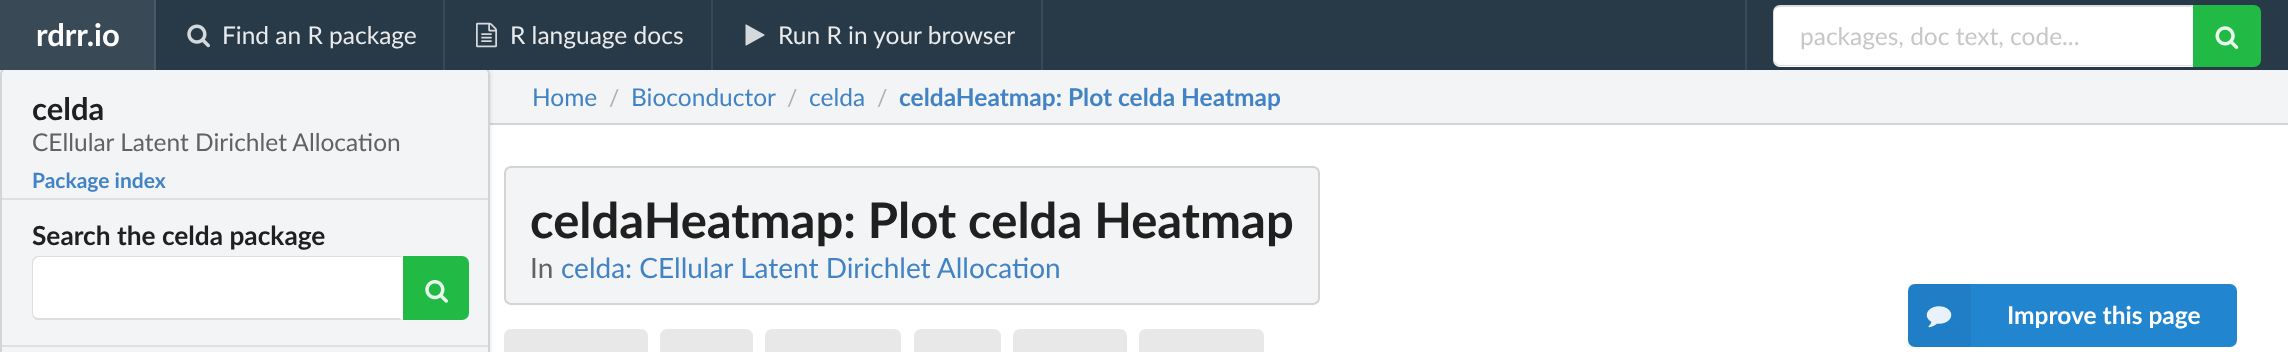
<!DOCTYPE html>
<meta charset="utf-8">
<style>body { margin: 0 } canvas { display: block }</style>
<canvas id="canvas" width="2288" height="352"></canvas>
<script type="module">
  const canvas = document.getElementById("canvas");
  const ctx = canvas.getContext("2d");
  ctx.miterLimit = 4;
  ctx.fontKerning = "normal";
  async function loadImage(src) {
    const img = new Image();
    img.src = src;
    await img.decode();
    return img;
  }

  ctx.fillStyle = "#ffffff";
  ctx.fillRect(0, 0, 2288, 352);
  ctx.fillStyle = "#f3f4f5";
  ctx.fillRect(490, 70, 1798, 53);
  ctx.fillStyle = "#d4d4d5";
  ctx.fillRect(490, 123, 1798, 2);
  ctx.fillStyle = "rgba(34, 36, 38, 0.15)";
  ctx.filter = "blur(2px)";
  ctx.beginPath();
  ctx.roundRect(0, 68, 490, 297, 7);
  ctx.fill();
  ctx.filter = "none";
  ctx.fillStyle = "#f3f4f5";
  ctx.beginPath();
  ctx.roundRect(0, 67, 490, 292, 7);
  ctx.fill();
  ctx.beginPath();
  ctx.roundRect(1, 68, 488, 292, 6);
  ctx.strokeStyle = "rgba(34, 36, 38, 0.15)";
  ctx.lineWidth = 2;
  ctx.stroke();
  ctx.fillStyle = "#283947";
  ctx.fillRect(156, 0, 2132, 70);
  ctx.fillStyle = "#394956";
  ctx.fillRect(0, 0, 154, 70);
  ctx.font = "bold 31px Lato";
  ctx.fillStyle = "#ffffff";
  ctx.fillText("rdrr.io", 36, 46);
  ctx.fillStyle = "#495864";
  ctx.fillRect(154, 0, 2, 70);
  ctx.drawImage(await loadImage("img1.png"), 187, 24, 23, 24);
  ctx.font = "24.5px Lato";
  ctx.fillStyle = "#eaebed";
  ctx.fillText("Find an R package", 222, 44);
  ctx.fillStyle = "#394956";
  ctx.fillRect(443, 0, 2, 70);
  ctx.drawImage(await loadImage("img2.png"), 476, 22, 21, 26);
  ctx.fillStyle = "#eaebed";
  ctx.fillText("R language docs", 510, 44);
  ctx.fillStyle = "#394956";
  ctx.fillRect(711, 0, 2, 70);
  ctx.drawImage(await loadImage("img3.png"), 745, 24, 20, 22);
  ctx.fillStyle = "#eaebed";
  ctx.fillText("Run R in your browser", 778, 44);
  ctx.fillStyle = "#394956";
  ctx.fillRect(1041, 0, 2, 70);
  ctx.fillRect(1745, 0, 2, 70);
  ctx.fillStyle = "#ffffff";
  ctx.beginPath();
  ctx.roundRect(1773, 5, 420, 62, [7, 0, 0, 7]);
  ctx.fill();
  ctx.fillStyle = "rgba(34, 36, 38, 0.15)";
  ctx.beginPath();
  ctx.moveTo(1780, 7);
  ctx.bezierCurveTo(1778, 7, 1777, 8, 1776, 8);
  ctx.lineTo(1775, 7);
  ctx.lineTo(1778, 5);
  ctx.lineTo(2193, 5);
  ctx.lineTo(2191, 7);
  ctx.closePath();
  ctx.fill();
  ctx.fillStyle = "#dedede";
  ctx.beginPath();
  ctx.moveTo(2192, 66);
  ctx.lineTo(1780, 66);
  ctx.bezierCurveTo(1778, 66, 1776, 65, 1775, 64);
  ctx.lineTo(1776, 63);
  ctx.bezierCurveTo(1777, 64, 1779, 65, 1780, 65);
  ctx.lineTo(2191, 65);
  ctx.closePath();
  ctx.fill();
  ctx.fillStyle = "rgba(34, 36, 38, 0.15)";
  ctx.beginPath();
  ctx.moveTo(1775, 64);
  ctx.bezierCurveTo(1774, 63, 1773, 62, 1773, 60);
  ctx.lineTo(1773, 12);
  ctx.bezierCurveTo(1773, 10, 1774, 8, 1775, 7);
  ctx.lineTo(1776, 8);
  ctx.bezierCurveTo(1775, 9, 1774, 10, 1774, 12);
  ctx.lineTo(1774, 60);
  ctx.bezierCurveTo(1774, 61, 1775, 62, 1776, 63);
  ctx.closePath();
  ctx.fill();
  ctx.fillStyle = "#c7c7c7";
  ctx.fillText("packages, doc text, code...", 1800, 45);
  ctx.fillStyle = "#21ba45";
  ctx.beginPath();
  ctx.roundRect(2193, 5, 68, 62, [0, 7, 7, 0]);
  ctx.fill();
  ctx.drawImage(await loadImage("img4.png"), 2215, 26, 24, 23);
  ctx.font = "bold 31px Lato";
  ctx.fillStyle = "#202020";
  ctx.fillText("celda", 32, 120);
  ctx.font = "24.5px Lato";
  ctx.fillStyle = "#616262";
  ctx.fillText("CEllular Latent Dirichlet Allocation", 32, 151);
  ctx.font = "bold 21px Lato";
  ctx.fillStyle = "#4183c4";
  ctx.fillText("Package index", 32, 188);
  ctx.fillStyle = "#dedfe0";
  ctx.fillRect(2, 198, 486, 2);
  ctx.font = "bold 26.25px Lato";
  ctx.fillStyle = "#202020";
  ctx.fillText("Search the celda package", 32, 245);
  ctx.fillStyle = "#ffffff";
  ctx.beginPath();
  ctx.roundRect(32, 256, 371, 64, [7, 0, 0, 7]);
  ctx.fill();
  ctx.fillStyle = "rgba(34, 36, 38, 0.15)";
  ctx.beginPath();
  ctx.moveTo(38, 256);
  ctx.bezierCurveTo(36, 256, 35, 257, 34, 258);
  ctx.lineTo(35, 259);
  ctx.bezierCurveTo(36, 258, 37, 257, 38, 257);
  ctx.lineTo(401, 257);
  ctx.lineTo(402, 256);
  ctx.closePath();
  ctx.fill();
  ctx.beginPath();
  ctx.moveTo(402, 320);
  ctx.lineTo(38, 320);
  ctx.bezierCurveTo(36, 320, 35, 319, 34, 318);
  ctx.lineTo(35, 317);
  ctx.lineTo(38, 318);
  ctx.lineTo(400, 318);
  ctx.closePath();
  ctx.fill();
  ctx.beginPath();
  ctx.moveTo(34, 258);
  ctx.bezierCurveTo(33, 259, 32, 260, 32, 262);
  ctx.lineTo(32, 313);
  ctx.bezierCurveTo(32, 315, 33, 317, 34, 318);
  ctx.lineTo(35, 317);
  ctx.bezierCurveTo(34, 316, 33, 315, 33, 313);
  ctx.lineTo(33, 262);
  ctx.bezierCurveTo(33, 261, 34, 260, 35, 259);
  ctx.closePath();
  ctx.fill();
  ctx.fillStyle = "#21ba45";
  ctx.beginPath();
  ctx.roundRect(403, 256, 66, 64, [0, 7, 7, 0]);
  ctx.fill();
  ctx.drawImage(await loadImage("img5.png"), 425, 280, 23, 23);
  ctx.fillStyle = "#dedfe0";
  ctx.fillRect(2, 345, 486, 2);
  ctx.font = "24.5px Lato";
  ctx.fillStyle = "#4183c4";
  ctx.fillText("Home", 532, 106);
  ctx.font = "23px Lato";
  ctx.fillStyle = "#afb0b1";
  ctx.fillText("/", 609, 106);
  ctx.font = "24.5px Lato";
  ctx.fillStyle = "#4183c4";
  ctx.fillText("Bioconductor", 631, 106);
  ctx.font = "23px Lato";
  ctx.fillStyle = "#afb0b1";
  ctx.fillText("/", 787, 106);
  ctx.font = "24.5px Lato";
  ctx.fillStyle = "#4183c4";
  ctx.fillText("celda", 809, 106);
  ctx.font = "23px Lato";
  ctx.fillStyle = "#afb0b1";
  ctx.fillText("/", 877, 106);
  ctx.font = "bold 24.5px Lato";
  ctx.fillStyle = "#4183c4";
  ctx.fillText("celdaHeatmap: Plot celda Heatmap", 899, 106);
  ctx.fillStyle = "#f3f4f5";
  ctx.beginPath();
  ctx.roundRect(505, 167, 814, 137, 6);
  ctx.fill();
  ctx.strokeStyle = "#d4d4d5";
  ctx.stroke();
  ctx.font = "bold 49px Lato";
  ctx.fillStyle = "#202020";
  ctx.fillText("celdaHeatmap: Plot celda Heatmap", 530, 238);
  ctx.font = "28px Lato";
  ctx.fillStyle = "#616262";
  ctx.fillText("In", 530, 278);
  ctx.fillStyle = "#4183c4";
  ctx.fillText("celda: CEllular Latent Dirichlet Allocation", 561, 278);
  ctx.fillStyle = "#e8e8e8";
  ctx.beginPath();
  ctx.roundRect(504, 329, 144, 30, 7);
  ctx.fill();
  ctx.beginPath();
  ctx.roundRect(660, 329, 93, 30, 7);
  ctx.fill();
  ctx.beginPath();
  ctx.roundRect(765, 329, 136, 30, 7);
  ctx.fill();
  ctx.beginPath();
  ctx.roundRect(914, 329, 87, 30, 7);
  ctx.fill();
  ctx.beginPath();
  ctx.roundRect(1013, 329, 114, 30, 7);
  ctx.fill();
  ctx.beginPath();
  ctx.roundRect(1139, 329, 125, 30, 7);
  ctx.fill();
  ctx.fillStyle = "#2185d0";
  ctx.beginPath();
  ctx.roundRect(1908, 284, 329, 63, 7);
  ctx.fill();
  ctx.fillStyle = "rgba(0, 0, 0, 0.05)";
  ctx.fillRect(1908, 284, 63, 63);
  ctx.drawImage(await loadImage("img6.png"), 1926, 306, 26, 22);
  ctx.font = "bold 24.5px Lato";
  ctx.fillStyle = "#ffffff";
  ctx.fillText("Improve this page", 2007, 324);
</script>
